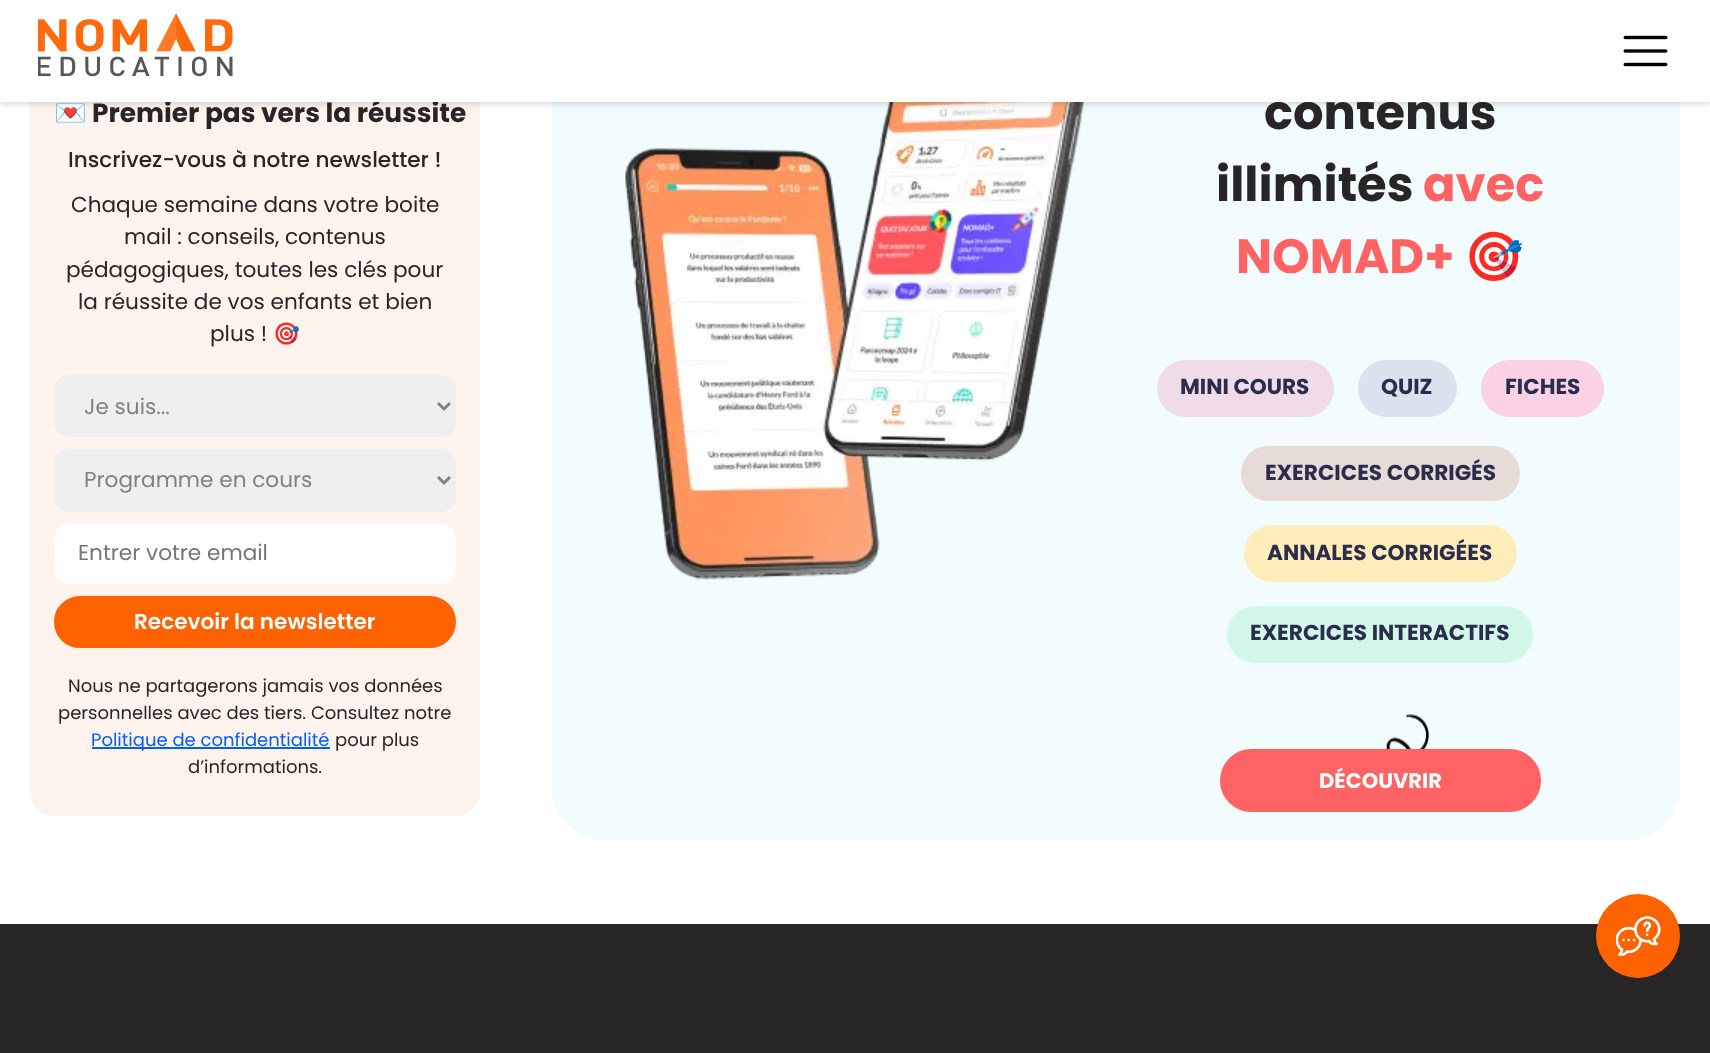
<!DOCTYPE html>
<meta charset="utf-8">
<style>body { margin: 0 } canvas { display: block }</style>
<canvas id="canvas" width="1710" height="1053"></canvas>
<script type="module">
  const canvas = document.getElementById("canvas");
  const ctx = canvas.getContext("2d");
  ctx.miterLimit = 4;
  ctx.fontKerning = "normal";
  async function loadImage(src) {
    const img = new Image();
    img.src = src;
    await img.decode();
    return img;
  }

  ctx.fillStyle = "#ffffff";
  ctx.fillRect(0, 0, 1710, 1053);
  ctx.fillStyle = "#fff3ed";
  ctx.beginPath();
  ctx.roundRect(30, 33, 450, 783, 24);
  ctx.fill();
  ctx.fillStyle = "#f2fbfe";
  ctx.beginPath();
  ctx.roundRect(552, -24, 1128, 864, 53);
  ctx.fill();
  ctx.drawImage(await loadImage("img3.png"), 625, 102, 460, 478);
  ctx.fillStyle = "rgba(0, 0, 0, 0.16)";
  ctx.filter = "blur(3px)";
  ctx.beginPath();
  ctx.rect(0, 2, 1710, 102);
  ctx.fill();
  ctx.filter = "none";
  ctx.font = "26.4px Noto Color Emoji";
  ctx.fillStyle = "#272525";
  ctx.fillText("💌", 54, 122);
  ctx.font = "bold 26.4px Poppins";
  ctx.fillText("Premier pas vers la réussite", 92, 122);
  ctx.font = "bold 48px Poppins";
  ctx.fillText("contenus", 1264, 129);
  ctx.fillStyle = "#ffffff";
  ctx.fillRect(0, 0, 1710, 102);
  ctx.drawImage(await loadImage("img1.png"), 38, 13, 195, 64);
  ctx.drawImage(await loadImage("img2.png"), 1623, 35, 45, 32);
  ctx.font = "500 21.6px Poppins";
  ctx.fillStyle = "#272525";
  ctx.fillText("Inscrivez-vous à notre newsletter !", 68, 167);
  ctx.font = "21.6px Poppins";
  ctx.fillText("Chaque semaine dans votre boite", 71, 212);
  ctx.fillText("mail : conseils, contenus", 124, 244);
  ctx.fillText("pédagogiques, toutes les clés pour", 66, 277);
  ctx.fillText("la réussite de vos enfants et bien", 78, 309);
  ctx.fillText("plus !", 210, 341);
  ctx.font = "21.6px Noto Color Emoji";
  ctx.fillText("🎯", 273, 341);
  ctx.fillStyle = "#efefef";
  ctx.beginPath();
  ctx.roundRect(54, 375, 402, 62, 15);
  ctx.fill();
  ctx.beginPath();
  ctx.moveTo(438, 403);
  ctx.lineTo(444, 409);
  ctx.lineTo(450, 403);
  ctx.strokeStyle = "#7e8287";
  ctx.lineWidth = 3;
  ctx.stroke();
  ctx.font = "21.6px Poppins";
  ctx.fillStyle = "#7e8287";
  ctx.fillText("Je suis...", 84, 414);
  ctx.fillStyle = "#efefef";
  ctx.beginPath();
  ctx.roundRect(54, 449, 402, 63, 15);
  ctx.fill();
  ctx.beginPath();
  ctx.moveTo(438, 477);
  ctx.lineTo(444, 483);
  ctx.lineTo(450, 477);
  ctx.stroke();
  ctx.fillStyle = "#7e8287";
  ctx.fillText("Programme en cours", 84, 487);
  ctx.fillStyle = "#ffffff";
  ctx.beginPath();
  ctx.roundRect(54, 524, 402, 60, 15);
  ctx.fill();
  ctx.fillStyle = "#757575";
  ctx.fillText("Entrer votre email", 78, 560);
  ctx.fillStyle = "#ff6201";
  ctx.beginPath();
  ctx.roundRect(55.5, 597.5, 399, 49, 24.5);
  ctx.fill();
  ctx.strokeStyle = "#ff6201";
  ctx.stroke();
  ctx.font = "600 21.6px Poppins";
  ctx.fillStyle = "#ffffff";
  ctx.fillText("Recevoir la newsletter", 134, 629);
  ctx.font = "18px Poppins";
  ctx.fillStyle = "#272525";
  ctx.fillText("Nous ne partagerons jamais vos données", 68, 692);
  ctx.fillText("personnelles avec des tiers. Consultez notre", 58, 719);
  ctx.fillStyle = "#005eff";
  ctx.fillRect(92, 747, 238, 2);
  ctx.fillText("Politique de confidentialité", 91, 746);
  ctx.fillStyle = "#272525";
  ctx.fillText("pour plus", 335, 746);
  ctx.fillText("d’informations.", 188, 773);
  ctx.font = "bold 48px Poppins";
  ctx.fillText("illimités", 1216, 201);
  ctx.fillStyle = "#ff6363";
  ctx.fillText("avec", 1423, 201);
  ctx.fillText("NOMAD+", 1236, 273);
  ctx.font = "48px Noto Color Emoji";
  ctx.fillStyle = "#272525";
  ctx.fillText("🎯", 1464, 273);
  ctx.fillStyle = "#efdce8";
  ctx.beginPath();
  ctx.roundRect(1157, 360, 177, 57, 28.5);
  ctx.fill();
  ctx.font = "bold 21.6px Poppins";
  ctx.fillStyle = "#2c2c4c";
  ctx.fillText("MINI COURS", 1180, 394);
  ctx.fillStyle = "#dbe3ee";
  ctx.beginPath();
  ctx.roundRect(1358, 360, 99, 57, 28.5);
  ctx.fill();
  ctx.fillStyle = "#2c2c4c";
  ctx.fillText("QUIZ", 1381, 394);
  ctx.fillStyle = "#fad2e4";
  ctx.beginPath();
  ctx.roundRect(1481, 360, 123, 57, 28.5);
  ctx.fill();
  ctx.fillStyle = "#2c2c4c";
  ctx.fillText("FICHES", 1505, 394);
  ctx.fillStyle = "#e6dbd6";
  ctx.beginPath();
  ctx.roundRect(1241, 446, 279, 55, 27.5);
  ctx.fill();
  ctx.fillStyle = "#2c2c4c";
  ctx.fillText("EXERCICES CORRIGÉS", 1265, 480);
  ctx.fillStyle = "#ffecbb";
  ctx.beginPath();
  ctx.roundRect(1244, 525, 273, 57, 28.5);
  ctx.fill();
  ctx.fillStyle = "#2c2c4c";
  ctx.fillText("ANNALES CORRIGÉES", 1267, 560);
  ctx.fillStyle = "#d1f7e9";
  ctx.beginPath();
  ctx.roundRect(1227, 606, 306, 57, 28.5);
  ctx.fill();
  ctx.fillStyle = "#2c2c4c";
  ctx.fillText("EXERCICES INTERACTIFS", 1250, 640);
  ctx.drawImage(await loadImage("img4.png"), 1386, 714, 43, 35);
  ctx.fillStyle = "#ff6363";
  ctx.beginPath();
  ctx.roundRect(1221.5, 750.5, 318, 60, 30);
  ctx.fill();
  ctx.strokeStyle = "#ff6363";
  ctx.stroke();
  ctx.font = "bold 21px Poppins";
  ctx.fillStyle = "#ffffff";
  ctx.fillText("DÉCOUVRIR", 1319, 788);
  ctx.fillStyle = "#272525";
  ctx.fillRect(0, 924, 1710, 129);
  ctx.fillStyle = "#ff6201";
  ctx.beginPath();
  ctx.arc(1638, 936, 42, 0, Math.PI * 2);
  ctx.fill();
  ctx.drawImage(await loadImage("img5.png"), 1616, 916, 45, 40);
</script>
